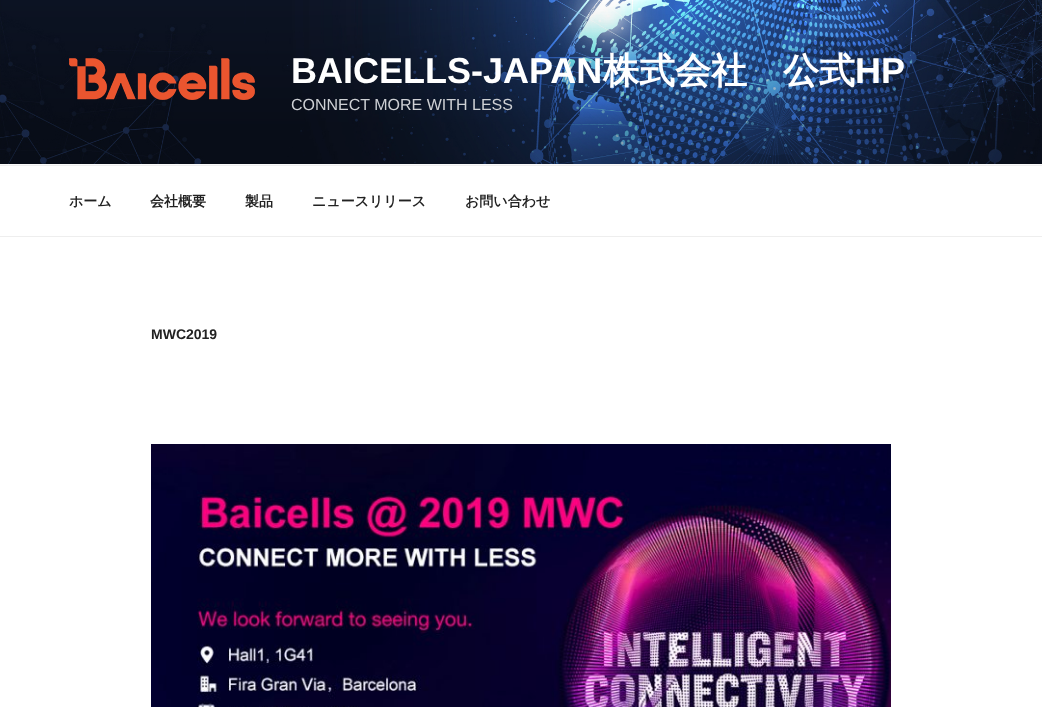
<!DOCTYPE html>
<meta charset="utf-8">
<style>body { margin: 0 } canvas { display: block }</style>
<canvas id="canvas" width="1042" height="707"></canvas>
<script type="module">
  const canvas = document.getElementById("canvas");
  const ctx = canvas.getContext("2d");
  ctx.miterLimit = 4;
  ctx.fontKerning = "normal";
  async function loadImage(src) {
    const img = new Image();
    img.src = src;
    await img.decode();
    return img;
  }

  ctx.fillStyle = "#ffffff";
  ctx.fillRect(0, 0, 1042, 707);
  ctx.fillStyle = "#fafafa";
  ctx.fillRect(0, 164, 1042, 1);
  ctx.drawImage(await loadImage("img1.png"), 0, 0, 1042, 164);
  ctx.drawImage(await loadImage("img2.png"), 69, 58, 186, 42);
  ctx.font = "bold 36px Liberation Sans";
  ctx.fillStyle = "#ffffff";
  ctx.fillText("BAICELLS-JAPAN", 291, 83);
  ctx.font = "bold 36px WenQuanYi Zen Hei";
  ctx.fillText("株式会社　公式", 603, 83);
  ctx.font = "bold 36px Liberation Sans";
  ctx.fillText("HP", 855, 83);
  ctx.font = "16px Liberation Sans";
  ctx.fillStyle = "#ced0d4";
  ctx.fillText("CONNECT MORE WITH LESS", 291, 110);
  ctx.fillStyle = "#eeeeee";
  ctx.fillRect(0, 165, 1042, 1);
  ctx.fillRect(0, 236, 1042, 1);
  ctx.font = "bold 14px WenQuanYi Zen Hei";
  ctx.fillStyle = "#222222";
  ctx.fillText("ホーム", 69, 206);
  ctx.fillText("会社概要", 150, 206);
  ctx.fillText("製品", 245, 206);
  ctx.fillText("ニュースリリース", 312, 206);
  ctx.fillText("お問い合わせ", 465, 206);
  ctx.font = "bold 14px Liberation Sans";
  ctx.fillText("MWC2019", 151, 339);
  ctx.drawImage(await loadImage("img3.png"), 151, 444, 740, 263);
</script>
